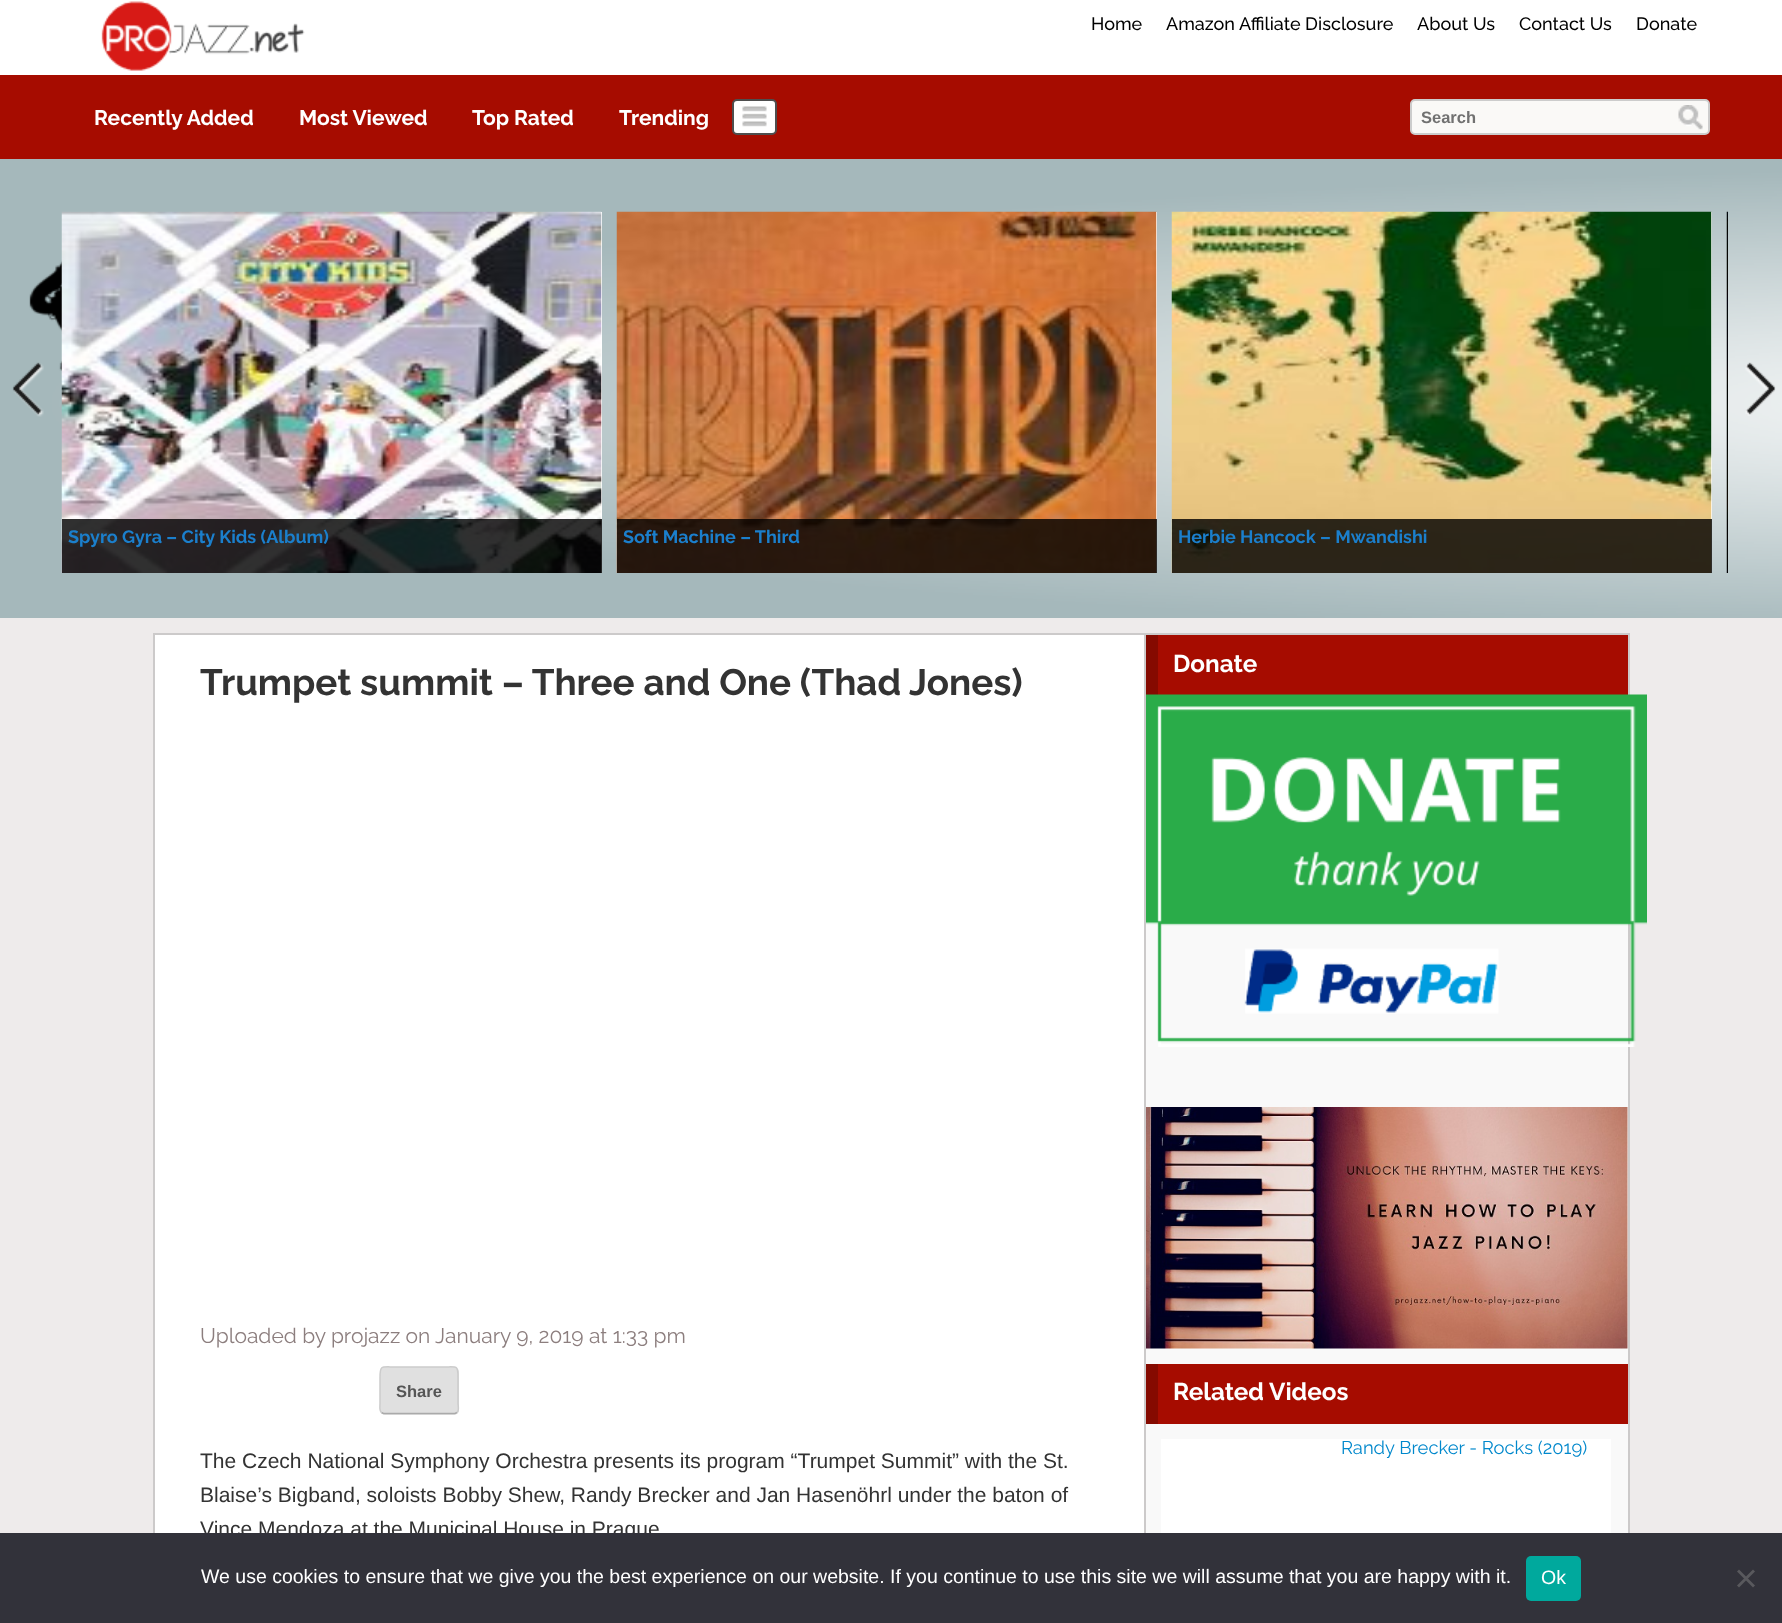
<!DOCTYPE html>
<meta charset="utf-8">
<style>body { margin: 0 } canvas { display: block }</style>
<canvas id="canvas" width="1782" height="1623"></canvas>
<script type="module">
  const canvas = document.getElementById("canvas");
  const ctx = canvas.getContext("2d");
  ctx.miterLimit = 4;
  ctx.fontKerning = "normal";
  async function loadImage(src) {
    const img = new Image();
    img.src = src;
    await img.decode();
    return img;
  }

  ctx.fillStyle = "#eeebeb";
  ctx.fillRect(0, 0, 1782, 1623);
  ctx.fillStyle = "#ffffff";
  ctx.fillRect(0, 0, 1782, 75);
  ctx.drawImage(await loadImage("img1.png"), 101, 1, 204, 70);
  ctx.font = "500 18px Raleway";
  ctx.fillStyle = "#000000";
  ctx.fillText("Home", 1091, 30);
  ctx.fillText("Amazon Affiliate Disclosure", 1166, 30);
  ctx.fillText("About Us", 1417, 30);
  ctx.fillText("Contact Us", 1519, 30);
  ctx.fillText("Donate", 1636, 30);
  ctx.fillStyle = "#a60c00";
  ctx.fillRect(0, 75, 1782, 84);
  ctx.font = "bold 21px Raleway";
  ctx.fillStyle = "#ffffff";
  ctx.fillText("Recently Added", 94, 125);
  ctx.fillText("Most Viewed", 299, 125);
  ctx.fillText("Top Rated", 472, 125);
  ctx.fillText("Trending", 619, 125);
  ctx.beginPath();
  ctx.roundRect(733, 100, 43, 34, 4);
  ctx.fill();
  ctx.strokeStyle = "#4e4e4e";
  ctx.lineWidth = 2;
  ctx.stroke();
  ctx.drawImage(await loadImage("img2.png"), 742, 106, 25, 21);
  ctx.fillStyle = "#faf9f7";
  ctx.beginPath();
  ctx.roundRect(1411, 100, 298, 34, 4);
  ctx.fill();
  ctx.strokeStyle = "#cccccc";
  ctx.stroke();
  ctx.font = "bold 16.5px Liberation Sans";
  ctx.fillStyle = "#717171";
  ctx.fillText("Search", 1421, 123);
  ctx.drawImage(await loadImage("img3.png"), 1678, 105, 25, 25);
  ctx.drawImage(await loadImage("img4.png"), 0, 159, 1782, 459);
  ctx.drawImage(await loadImage("img5.png"), 12, 362, 32, 55);
  ctx.drawImage(await loadImage("img6.png"), 1745, 362, 31, 54);
  ctx.fillStyle = "#ffffff";
  ctx.fillRect(601, 212, 1, 361);
  ctx.drawImage(await loadImage("img7.png"), 61, 211, 541, 362);
  ctx.fillStyle = "rgba(0, 0, 0, 0.81)";
  ctx.fillRect(62, 519, 540, 54);
  ctx.font = "bold 18px Raleway";
  ctx.fillStyle = "#1b7fcc";
  ctx.fillText("Spyro Gyra – City Kids (Album)", 68, 543);
  ctx.fillStyle = "#ffffff";
  ctx.fillRect(1156, 212, 1, 361);
  ctx.drawImage(await loadImage("img8.png"), 616, 211, 541, 362);
  ctx.fillStyle = "rgba(0, 0, 0, 0.81)";
  ctx.fillRect(617, 519, 540, 54);
  ctx.fillStyle = "#1b7fcc";
  ctx.fillText("Soft Machine – Third", 623, 543);
  ctx.fillStyle = "#ffffff";
  ctx.fillRect(1711, 212, 1, 361);
  ctx.drawImage(await loadImage("img9.png"), 1171, 211, 541, 362);
  ctx.fillStyle = "rgba(0, 0, 0, 0.81)";
  ctx.fillRect(1172, 519, 540, 54);
  ctx.fillStyle = "#1b7fcc";
  ctx.fillText("Herbie Hancock – Mwandishi", 1178, 543);
  ctx.drawImage(await loadImage("img10.png"), 1726, 211, 2, 362);
  ctx.fillStyle = "rgba(0, 0, 0, 0.81)";
  ctx.fillRect(1727, 519, 1, 54);
  ctx.fillStyle = "#ffffff";
  ctx.fillRect(155, 635, 989, 898);
  ctx.strokeStyle = "#cccaca";
  ctx.strokeRect(154, 634, 991, 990);
  ctx.font = "bold 36.75px Raleway";
  ctx.fillStyle = "#333333";
  ctx.fillText("Trumpet summit – Three and One (Thad Jones)", 200, 695);
  ctx.font = "21px Raleway";
  ctx.fillStyle = "#8c7e7e";
  ctx.fillText("Uploaded by projazz on January 9, 2019 at 1:33 pm", 200, 1343);
  ctx.fillStyle = "#e0e0e0";
  ctx.beginPath();
  ctx.roundRect(380, 1367, 79, 48, 5);
  ctx.fill();
  ctx.beginPath();
  ctx.moveTo(457, 1412.5);
  ctx.lineTo(455, 1413.5);
  ctx.lineTo(383.5, 1413.5);
  ctx.lineTo(381.5, 1412.5);
  ctx.strokeStyle = "#aaaaaa";
  ctx.lineWidth = 1.5;
  ctx.stroke();
  ctx.beginPath();
  ctx.moveTo(381.5, 1412.5);
  ctx.bezierCurveTo(379, 1410.5, 380, 1405.5, 380, 1403.5);
  ctx.lineTo(380, 1377.5);
  ctx.bezierCurveTo(380, 1364.5, 381.5, 1367, 396, 1367);
  ctx.lineTo(443, 1367);
  ctx.bezierCurveTo(457, 1367, 458, 1364.5, 458, 1377.5);
  ctx.lineTo(458, 1403.5);
  ctx.bezierCurveTo(458, 1405.5, 459.5, 1410.5, 457, 1412.5);
  ctx.strokeStyle = "#cccccc";
  ctx.stroke();
  ctx.font = "bold 16.5px Liberation Sans";
  ctx.fillStyle = "#555555";
  ctx.fillText("Share", 396, 1397);
  ctx.font = "21px Liberation Sans";
  ctx.fillStyle = "#333333";
  ctx.fillText("The Czech National Symphony Orchestra presents its program “Trumpet Summit” with the St.", 200, 1468);
  ctx.fillText("Blaise’s Bigband, soloists Bobby Shew, Randy Brecker and Jan Hasenöhrl under the baton of", 200, 1502);
  ctx.fillText("Vince Mendoza at the Municipal House in Prague", 200, 1536);
  ctx.fillStyle = "#f9f9f9";
  ctx.fillRect(1146, 922, 482, 611);
  ctx.fillStyle = "#cccaca";
  ctx.fillRect(1146, 633, 483, 2);
  ctx.fillRect(1628, 633, 2, 900);
  ctx.fillStyle = "#a60c00";
  ctx.fillRect(1158, 635, 470, 60);
  ctx.fillStyle = "#850a00";
  ctx.fillRect(1146, 635, 12, 60);
  ctx.font = "bold 24.25px Raleway";
  ctx.fillStyle = "#ffffff";
  ctx.fillText("Donate", 1173, 672);
  ctx.drawImage(await loadImage("img11.png"), 1146, 694, 501, 353);
  ctx.drawImage(await loadImage("img12.png"), 1146, 1107, 482, 242);
  ctx.fillStyle = "#a60c00";
  ctx.fillRect(1158, 1364, 470, 60);
  ctx.fillStyle = "#850a00";
  ctx.fillRect(1146, 1364, 12, 60);
  ctx.fillStyle = "#ffffff";
  ctx.fillText("Related Videos", 1173, 1400);
  ctx.fillRect(1161, 1439, 450, 94);
  ctx.font = "18.4px Raleway";
  ctx.fillStyle = "#0088cc";
  ctx.fillText("Randy Brecker - Rocks (2019)", 1341, 1454);
  ctx.fillStyle = "#32323a";
  ctx.fillRect(0, 1533, 1782, 90);
  ctx.font = "19.5px Liberation Sans";
  ctx.fillStyle = "#ffffff";
  ctx.fillText("We use cookies to ensure that we give you the best experience on our website. If you continue to use this site we will assume that you are happy with it.", 201, 1583);
  ctx.fillStyle = "#00a99d";
  ctx.beginPath();
  ctx.roundRect(1526, 1556, 55, 45, 5);
  ctx.fill();
  ctx.fillStyle = "#ffffff";
  ctx.fillText("Ok", 1541, 1584);
  ctx.fillStyle = "#59595d";
  ctx.beginPath();
  ctx.moveTo(1753, 1569.5);
  ctx.lineTo(1755, 1571.5);
  ctx.lineTo(1739, 1587.5);
  ctx.lineTo(1737, 1585.5);
  ctx.closePath();
  ctx.fill();
  ctx.beginPath();
  ctx.moveTo(1737, 1571.5);
  ctx.lineTo(1739, 1569.5);
  ctx.lineTo(1755, 1585.5);
  ctx.lineTo(1753, 1587.5);
  ctx.closePath();
  ctx.fill();
</script>
